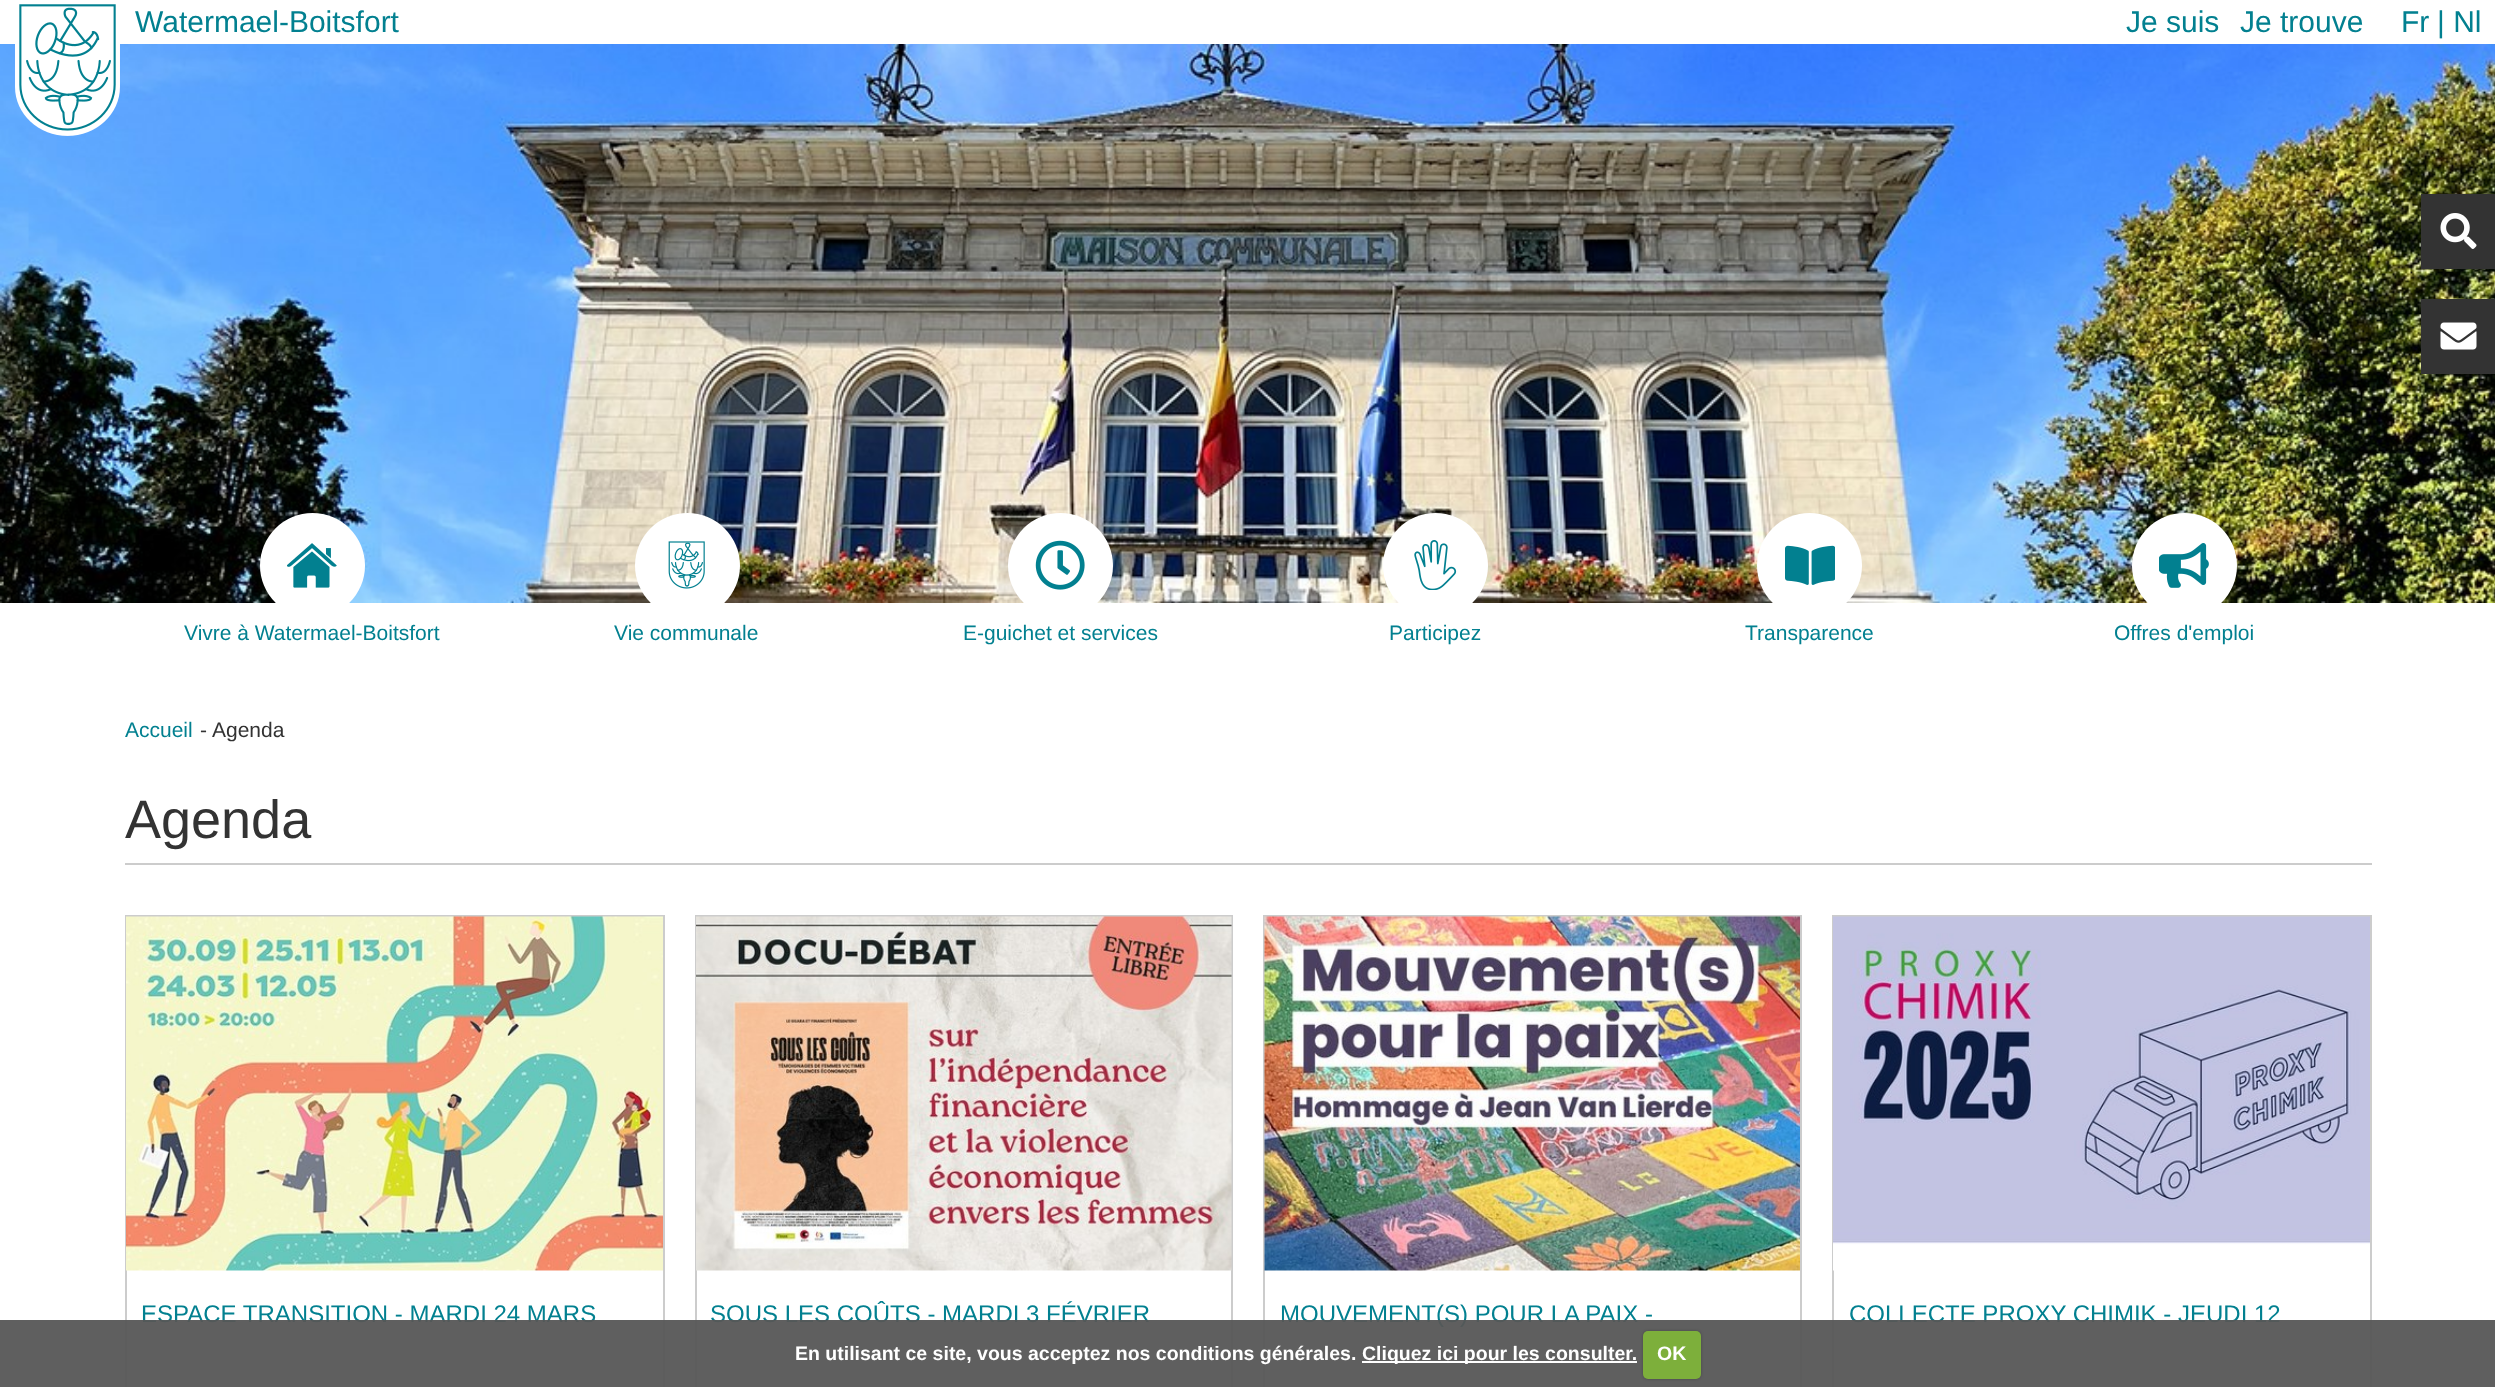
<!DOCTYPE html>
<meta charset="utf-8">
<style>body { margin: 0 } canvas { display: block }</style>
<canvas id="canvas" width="2495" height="1387"></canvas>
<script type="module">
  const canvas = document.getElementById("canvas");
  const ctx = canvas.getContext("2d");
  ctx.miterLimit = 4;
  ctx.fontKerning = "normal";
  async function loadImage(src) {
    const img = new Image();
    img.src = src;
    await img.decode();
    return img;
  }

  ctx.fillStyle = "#ffffff";
  ctx.fillRect(0, 0, 2495, 1387);
  ctx.drawImage(await loadImage("img2.png"), 0, 44, 2495, 559);
  ctx.drawImage(await loadImage("img1.png"), 15, 4, 105, 132);
  ctx.font = "30px Liberation Sans";
  ctx.fillStyle = "#028090";
  ctx.fillText("Watermael-Boitsfort", 135, 32);
  ctx.fillText("Je suis", 2126, 32);
  ctx.fillText("Je trouve", 2240, 32);
  ctx.fillText("Fr", 2401, 32);
  ctx.fillText("| Nl", 2437, 32);
  ctx.fillStyle = "#333333";
  ctx.fillRect(2421, 194, 74, 75);
  ctx.drawImage(await loadImage("img3.png"), 2440, 213, 37, 36);
  ctx.fillRect(2421, 299, 74, 75);
  ctx.drawImage(await loadImage("img4.png"), 2440, 322, 37, 28);
  ctx.fillStyle = "#ffffff";
  ctx.beginPath();
  ctx.arc(312.5, 565.5, 52.5, 0, Math.PI * 2);
  ctx.fill();
  ctx.drawImage(await loadImage("img5.png"), 287, 543, 50, 45);
  ctx.font = "21px Liberation Sans";
  ctx.fillStyle = "#028090";
  ctx.fillText("Vivre à Watermael-Boitsfort", 184, 640);
  ctx.fillStyle = "#ffffff";
  ctx.beginPath();
  ctx.arc(687.5, 565.5, 52.5, 0, Math.PI * 2);
  ctx.fill();
  ctx.drawImage(await loadImage("img6.png"), 668, 541, 37, 48);
  ctx.fillStyle = "#028090";
  ctx.fillText("Vie communale", 614, 640);
  ctx.fillStyle = "#ffffff";
  ctx.beginPath();
  ctx.arc(1060.5, 565.5, 52.5, 0, Math.PI * 2);
  ctx.fill();
  ctx.drawImage(await loadImage("img7.png"), 1035, 540, 50, 50);
  ctx.fillStyle = "#028090";
  ctx.fillText("E-guichet et services", 963, 640);
  ctx.fillStyle = "#ffffff";
  ctx.beginPath();
  ctx.arc(1435.5, 565.5, 52.5, 0, Math.PI * 2);
  ctx.fill();
  ctx.drawImage(await loadImage("img8.png"), 1414, 540, 43, 50);
  ctx.fillStyle = "#028090";
  ctx.fillText("Participez", 1389, 640);
  ctx.fillStyle = "#ffffff";
  ctx.beginPath();
  ctx.arc(1809.5, 565.5, 52.5, 0, Math.PI * 2);
  ctx.fill();
  ctx.drawImage(await loadImage("img9.png"), 1785, 545, 50, 40);
  ctx.fillStyle = "#028090";
  ctx.fillText("Transparence", 1745, 640);
  ctx.fillStyle = "#ffffff";
  ctx.beginPath();
  ctx.arc(2184.5, 565.5, 52.5, 0, Math.PI * 2);
  ctx.fill();
  ctx.drawImage(await loadImage("img10.png"), 2159, 543, 50, 45);
  ctx.fillStyle = "#028090";
  ctx.fillText("Offres d'emploi", 2114, 640);
  ctx.fillText("Accueil", 125, 737);
  ctx.fillStyle = "#333333";
  ctx.fillText("-", 200, 737);
  ctx.fillText("Agenda", 212, 737);
  ctx.fillStyle = "#cccccc";
  ctx.fillRect(125, 863, 2247, 2);
  ctx.font = "54px Liberation Sans";
  ctx.fillStyle = "#333333";
  ctx.fillText("Agenda", 125, 838);
  ctx.strokeStyle = "#cccccc";
  ctx.lineWidth = 2;
  ctx.strokeRect(126, 916, 538, 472);
  ctx.drawImage(await loadImage("img11.png"), 126, 916, 537, 355);
  ctx.font = "24px Liberation Sans";
  ctx.fillStyle = "#028090";
  ctx.fillText("ESPACE TRANSITION - MARDI 24 MARS", 141, 1322);
  ctx.strokeRect(696, 916, 536, 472);
  ctx.drawImage(await loadImage("img12.png"), 696, 916, 536, 355);
  ctx.fillText("SOUS LES COÛTS - MARDI 3 FÉVRIER", 710, 1322);
  ctx.strokeRect(1264, 916, 537, 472);
  ctx.drawImage(await loadImage("img13.png"), 1264, 916, 536, 355);
  ctx.fillText("MOUVEMENT(S) POUR LA PAIX -", 1280, 1322);
  ctx.strokeRect(1833, 916, 538, 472);
  ctx.drawImage(await loadImage("img14.png"), 1833, 916, 537, 355);
  ctx.fillText("COLLECTE PROXY CHIMIK - JEUDI 12", 1849, 1322);
  ctx.fillStyle = "rgba(86, 86, 86, 0.95)";
  ctx.fillRect(0, 1320, 2495, 67);
  ctx.font = "bold 19.5px Liberation Sans";
  ctx.fillStyle = "#ffffff";
  ctx.fillText("En utilisant ce site, vous acceptez nos conditions générales.", 795, 1360);
  ctx.fillRect(1362, 1361, 275, 2);
  ctx.fillText("Cliquez ici pour les consulter.", 1362, 1360);
  ctx.fillStyle = "rgba(0, 0, 0, 0.25)";
  ctx.filter = "blur(1.5px)";
  ctx.beginPath();
  ctx.roundRect(1643, 1331, 58, 48, 5);
  ctx.fill();
  ctx.filter = "none";
  ctx.fillStyle = "#7daf3b";
  ctx.beginPath();
  ctx.roundRect(1643, 1331, 58, 48, 5);
  ctx.fill();
  ctx.fillStyle = "#ffffff";
  ctx.fillText("OK", 1657, 1360);
</script>
